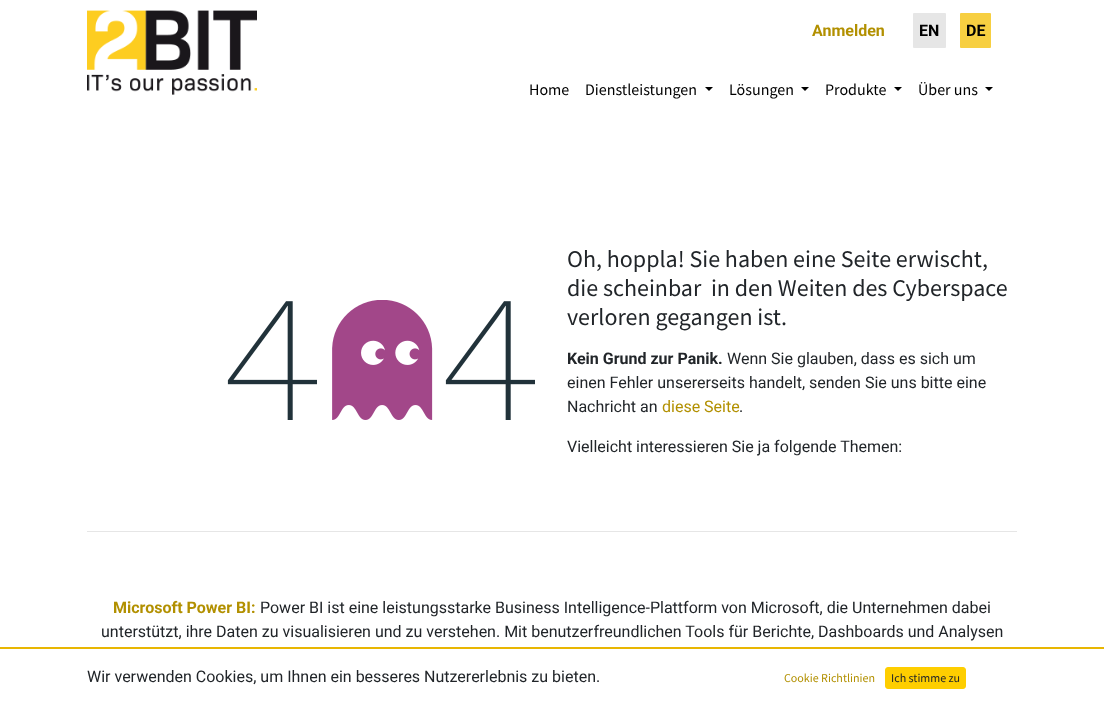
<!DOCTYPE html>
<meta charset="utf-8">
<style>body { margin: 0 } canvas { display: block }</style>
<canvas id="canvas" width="1104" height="705"></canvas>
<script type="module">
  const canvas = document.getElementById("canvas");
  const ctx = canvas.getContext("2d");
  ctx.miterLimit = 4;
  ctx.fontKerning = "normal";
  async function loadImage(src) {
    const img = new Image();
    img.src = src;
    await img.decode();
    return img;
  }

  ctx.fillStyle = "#ffffff";
  ctx.fillRect(0, 0, 1104, 705);
  ctx.font = "bold 16px Roboto";
  ctx.fillStyle = "#b29000";
  ctx.fillText("Anmelden", 812, 36);
  ctx.fillStyle = "#e6e6e6";
  ctx.beginPath();
  ctx.roundRect(913, 13, 33, 35, 1);
  ctx.fill();
  ctx.fillStyle = "#000000";
  ctx.fillText("EN", 919, 36);
  ctx.fillStyle = "#f7cf41";
  ctx.beginPath();
  ctx.roundRect(960, 13, 31, 35, 1);
  ctx.fill();
  ctx.fillStyle = "#000000";
  ctx.fillText("DE", 966, 36);
  ctx.drawImage(await loadImage("img1.png"), 87, 10, 170, 85);
  ctx.font = "16px Source Sans Pro";
  ctx.fillText("Home", 529, 95);
  ctx.fillText("Dienstleistungen", 585, 95);
  ctx.beginPath();
  ctx.moveTo(705, 87);
  ctx.lineTo(713, 87);
  ctx.lineTo(709, 91);
  ctx.closePath();
  ctx.fill();
  ctx.fillText("Lösungen", 729, 95);
  ctx.beginPath();
  ctx.moveTo(801, 87);
  ctx.lineTo(809, 87);
  ctx.lineTo(805, 91);
  ctx.closePath();
  ctx.fill();
  ctx.fillText("Produkte", 825, 95);
  ctx.beginPath();
  ctx.moveTo(894, 87);
  ctx.lineTo(902, 87);
  ctx.lineTo(898, 91);
  ctx.closePath();
  ctx.fill();
  ctx.fillText("Über uns", 918, 95);
  ctx.beginPath();
  ctx.moveTo(985, 87);
  ctx.lineTo(993, 87);
  ctx.lineTo(989, 91);
  ctx.closePath();
  ctx.fill();
  ctx.drawImage(await loadImage("img2.png"), 227, 300, 308, 120);
  ctx.font = "24px Source Sans Pro";
  ctx.fillStyle = "#212529";
  ctx.fillText("Oh, hoppla! Sie haben eine Seite erwischt,", 567, 267);
  ctx.fillText("die scheinbar  in den Weiten des Cyberspace", 567, 296);
  ctx.fillText("verloren gegangen ist.", 567, 325);
  ctx.font = "bold 16px Roboto";
  ctx.fillText("Kein Grund zur Panik.", 567, 364);
  ctx.font = "16px Roboto";
  ctx.fillText("Wenn Sie glauben, dass es sich um", 727, 364);
  ctx.fillText("einen Fehler unsererseits handelt, senden Sie uns bitte eine", 567, 388);
  ctx.fillText("Nachricht an", 567, 412);
  ctx.fillStyle = "#b29000";
  ctx.fillText("diese Seite", 662, 412);
  ctx.fillStyle = "#212529";
  ctx.fillText(".", 739, 412);
  ctx.fillText("Vielleicht interessieren Sie ja folgende Themen:", 567, 452);
  ctx.fillStyle = "#e6e6e6";
  ctx.fillRect(87, 531, 930, 1);
  ctx.font = "bold 16px Roboto";
  ctx.fillStyle = "#b29000";
  ctx.fillText("Microsoft Power BI:", 113, 613);
  ctx.font = "16px Roboto";
  ctx.fillStyle = "#212529";
  ctx.fillText("Power BI ist eine leistungsstarke Business Intelligence-Plattform von Microsoft, die Unternehmen dabei", 260, 613);
  ctx.fillText("unterstützt, ihre Daten zu visualisieren und zu verstehen. Mit benutzerfreundlichen Tools für Berichte, Dashboards und Analysen", 101, 637);
  ctx.fillStyle = "#e8b602";
  ctx.fillRect(0, 647, 1104, 2);
  ctx.fillStyle = "#212529";
  ctx.fillText("Wir verwenden Cookies, um Ihnen ein besseres Nutzererlebnis zu bieten.", 87, 682);
  ctx.font = "12px Source Sans Pro";
  ctx.fillStyle = "#b29000";
  ctx.fillText("Cookie Richtlinien", 784, 682);
  ctx.fillStyle = "#fece00";
  ctx.beginPath();
  ctx.roundRect(885.5, 667.5, 80, 21, 2.5);
  ctx.fill();
  ctx.strokeStyle = "#fece00";
  ctx.stroke();
  ctx.fillStyle = "#212529";
  ctx.fillText("Ich stimme zu", 891, 682);
</script>
